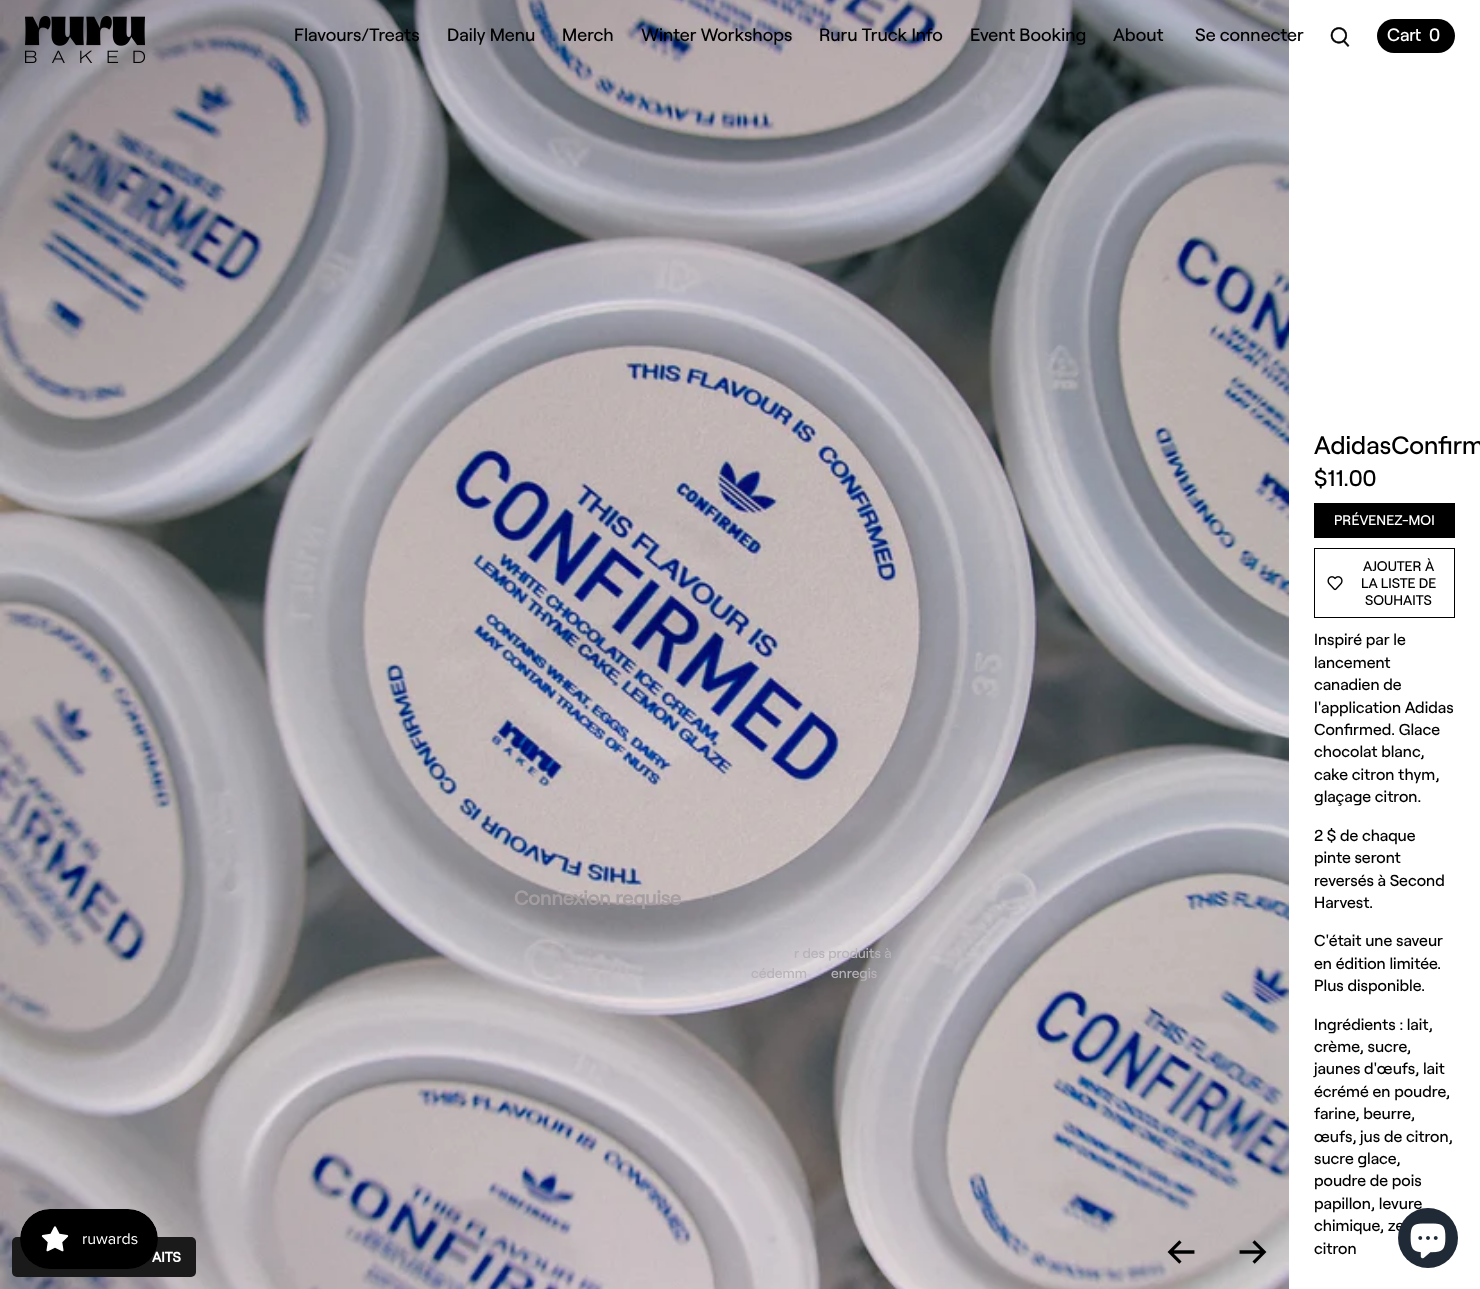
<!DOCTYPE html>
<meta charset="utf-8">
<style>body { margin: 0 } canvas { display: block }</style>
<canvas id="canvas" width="1480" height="1289"></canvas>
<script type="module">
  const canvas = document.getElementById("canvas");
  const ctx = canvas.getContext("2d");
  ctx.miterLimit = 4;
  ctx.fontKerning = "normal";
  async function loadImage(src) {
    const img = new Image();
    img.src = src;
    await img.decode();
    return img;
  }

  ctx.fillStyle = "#ffffff";
  ctx.fillRect(0, 0, 1480, 1289);
  ctx.drawImage(await loadImage("img3.png"), 0, 0, 1289, 1289);
  ctx.drawImage(await loadImage("img1.png"), 25, 16, 120, 47);
  ctx.font = "500 18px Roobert";
  ctx.fillStyle = "#000000";
  ctx.fillText("Flavours/Treats", 294, 41);
  ctx.fillText("Daily Menu", 447, 41);
  ctx.fillText("Merch", 562, 41);
  ctx.fillText("Winter Workshops", 641, 41);
  ctx.fillText("Ruru Truck Info", 819, 41);
  ctx.fillText("Event Booking", 970, 41);
  ctx.fillText("About", 1113, 41);
  ctx.fillText("Se connecter", 1195, 41);
  ctx.drawImage(await loadImage("img2.png"), 1330, 27, 20, 20);
  ctx.beginPath();
  ctx.roundRect(1377, 19, 78, 34, 17);
  ctx.fill();
  ctx.fillStyle = "#ffffff";
  ctx.fillText("Cart", 1387, 41);
  ctx.fillText("0", 1429, 41);
  ctx.font = "500 42px Roobert";
  ctx.fillStyle = "#000000";
  ctx.fillText("←", 1166, 1263);
  ctx.fillText("→", 1238, 1263);
  ctx.font = "500 25.25px Roobert";
  ctx.fillText("AdidasConfirm", 1314, 454);
  ctx.font = "500 22.5px Roobert";
  ctx.fillText("$11.00", 1314, 486);
  ctx.fillRect(1314, 503, 141, 35);
  ctx.font = "500 14px Roobert";
  ctx.fillStyle = "#ffffff";
  ctx.fillText("PRÉVENEZ-MOI", 1334, 525);
  ctx.strokeStyle = "#000000";
  ctx.strokeRect(1314.5, 548.5, 140, 69);
  ctx.fillStyle = "#000000";
  ctx.fillText("AJOUTER À", 1363, 571);
  ctx.drawImage(await loadImage("img4.png"), 1327, 576, 16, 15);
  ctx.fillText("LA LISTE DE", 1361, 588);
  ctx.fillText("SOUHAITS", 1365, 605);
  ctx.font = "500 16px Roobert";
  ctx.fillText("Inspiré par le", 1314, 645);
  ctx.fillText("lancement", 1314, 668);
  ctx.fillText("canadien de", 1314, 690);
  ctx.fillText("l'application Adidas", 1314, 713);
  ctx.fillText("Confirmed. Glace", 1314, 735);
  ctx.fillText("chocolat blanc,", 1314, 757);
  ctx.fillText("cake citron thym,", 1314, 780);
  ctx.fillText("glaçage citron.", 1314, 802);
  ctx.fillText("2 $ de chaque", 1314, 841);
  ctx.fillText("pinte seront", 1314, 863);
  ctx.fillText("reversés à Second", 1314, 886);
  ctx.fillText("Harvest.", 1314, 908);
  ctx.fillText("C'était une saveur", 1314, 946);
  ctx.fillText("en édition limitée.", 1314, 969);
  ctx.fillText("Plus disponible.", 1314, 991);
  ctx.fillText("Ingrédients : lait,", 1314, 1030);
  ctx.fillText("crème, sucre,", 1314, 1052);
  ctx.fillText("jaunes d'œufs, lait", 1314, 1074);
  ctx.fillText("écrémé en poudre,", 1314, 1097);
  ctx.fillText("farine, beurre,", 1314, 1119);
  ctx.fillText("œufs, jus de citron,", 1314, 1142);
  ctx.fillText("sucre glace,", 1314, 1164);
  ctx.fillText("poudre de pois", 1314, 1186);
  ctx.fillText("papillon, levure", 1314, 1209);
  ctx.fillText("chimique, ze", 1314, 1231);
  ctx.fillText("citron", 1314, 1254);
  ctx.fillStyle = "#1a1a1a";
  ctx.beginPath();
  ctx.roundRect(12, 1237, 184, 40, 5);
  ctx.fill();
  ctx.font = "bold 14px Roobert";
  ctx.fillStyle = "#ffffff";
  ctx.fillText("AITS", 152, 1262);
  ctx.drawImage(await loadImage("img5.png"), 20, 1209, 138, 60);
  ctx.font = "bold 20px Roobert";
  ctx.fillStyle = "#a59ea1";
  ctx.fillText("Connexion requise", 514, 905);
  ctx.font = "500 14px Roobert";
  ctx.fillStyle = "#b6b3b9";
  ctx.fillText("r des produits à", 794, 958);
  ctx.fillText("cédemm", 751, 978);
  ctx.fillText("enregis", 831, 978);
  ctx.fillStyle = "#202a36";
  ctx.beginPath();
  ctx.arc(1428, 1238, 30, 0, Math.PI * 2);
  ctx.fill();
  ctx.drawImage(await loadImage("img6.png"), 1410, 1223, 36, 36);
</script>
